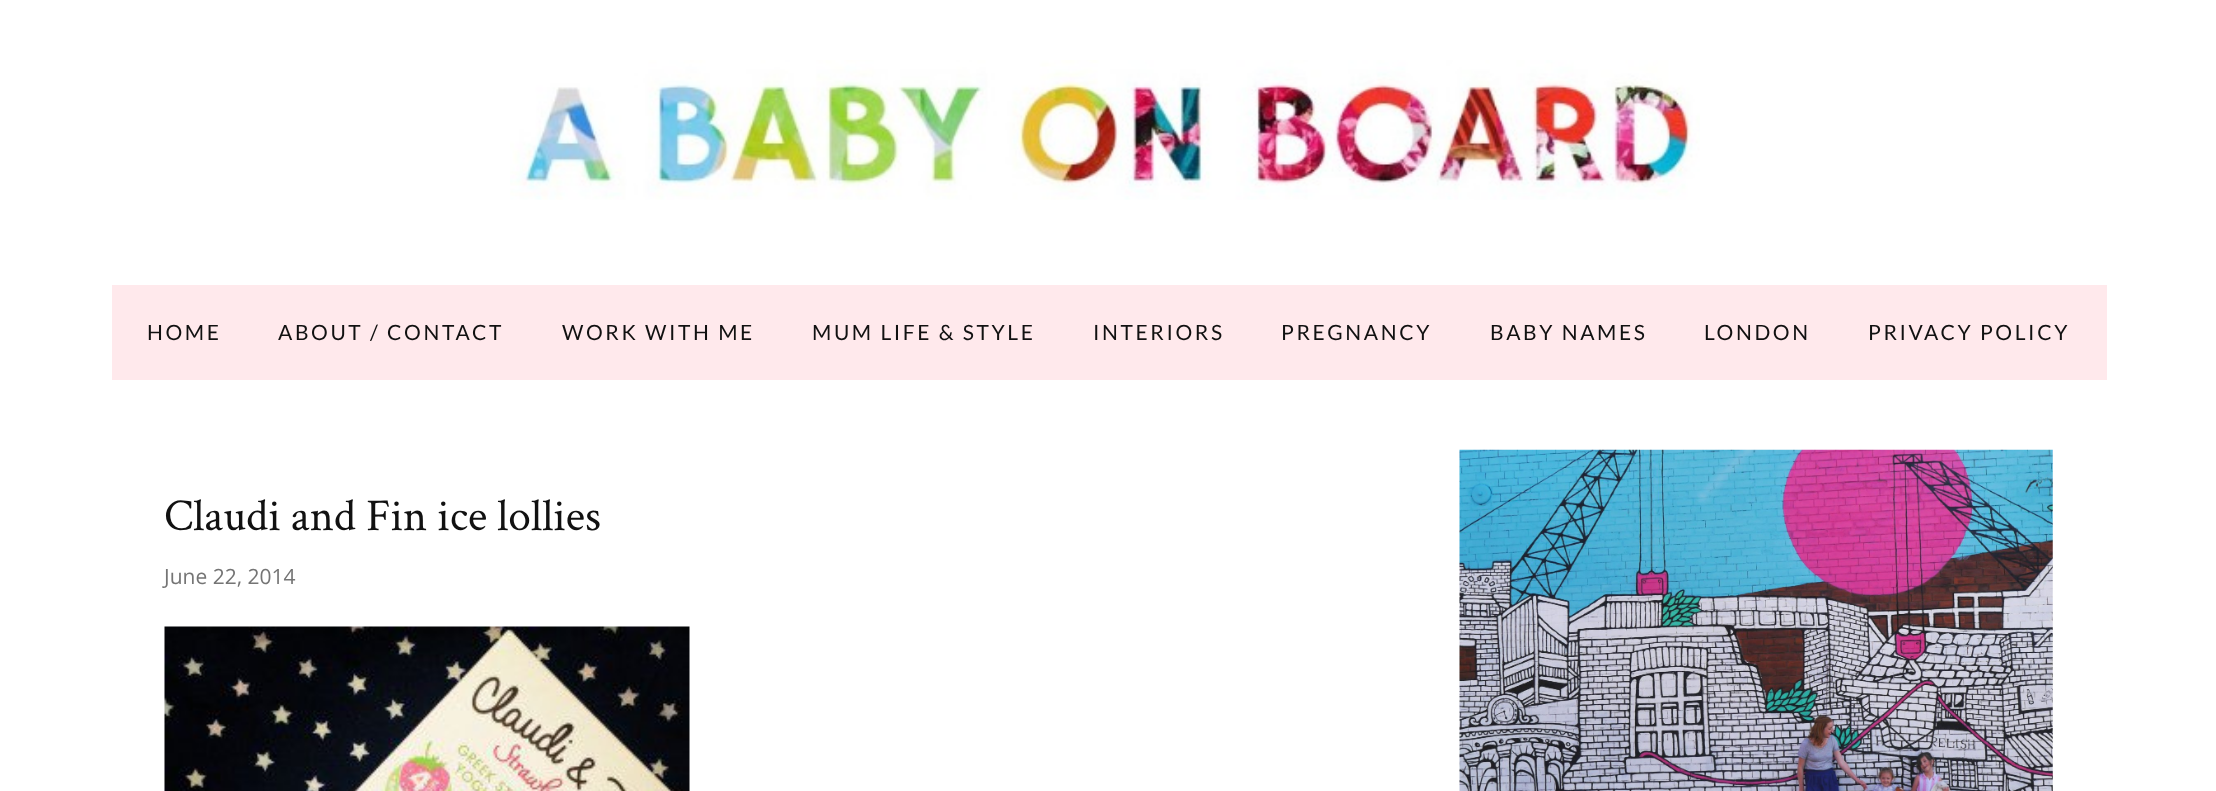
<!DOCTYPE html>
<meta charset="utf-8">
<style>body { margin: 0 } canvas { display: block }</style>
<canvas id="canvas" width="2216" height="791"></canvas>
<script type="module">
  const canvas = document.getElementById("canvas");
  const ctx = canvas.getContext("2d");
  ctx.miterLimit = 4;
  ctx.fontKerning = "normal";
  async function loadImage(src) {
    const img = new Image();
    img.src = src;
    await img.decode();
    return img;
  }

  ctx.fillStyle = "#ffffff";
  ctx.fillRect(0, 0, 2216, 791);
  ctx.drawImage(await loadImage("img1.png"), 510, 60, 1190, 140);
  ctx.fillStyle = "#ffe9ec";
  ctx.fillRect(112, 285, 1995, 95);
  ctx.letterSpacing = "2.6px";
  ctx.font = "21px Lato";
  ctx.fillStyle = "#111111";
  ctx.fillText("HOME", 147, 340);
  ctx.fillText("ABOUT / CONTACT", 278, 340);
  ctx.fillText("WORK WITH ME", 562, 340);
  ctx.fillText("MUM LIFE & STYLE", 812, 340);
  ctx.fillText("INTERIORS", 1093, 340);
  ctx.fillText("PREGNANCY", 1281, 340);
  ctx.fillText("BABY NAMES", 1490, 340);
  ctx.fillText("LONDON", 1704, 340);
  ctx.fillText("PRIVACY POLICY", 1868, 340);
  ctx.letterSpacing = "0px";
  ctx.font = "45.5px Crimson Text";
  ctx.fillText("Claudi and Fin ice lollies", 164, 530);
  ctx.font = "21px Open Sans";
  ctx.fillStyle = "#757575";
  ctx.fillText("June 22, 2014", 164, 584);
  ctx.drawImage(await loadImage("img2.png"), 164, 626, 526, 165);
  ctx.drawImage(await loadImage("img3.png"), 1459, 449, 594, 342);
</script>
